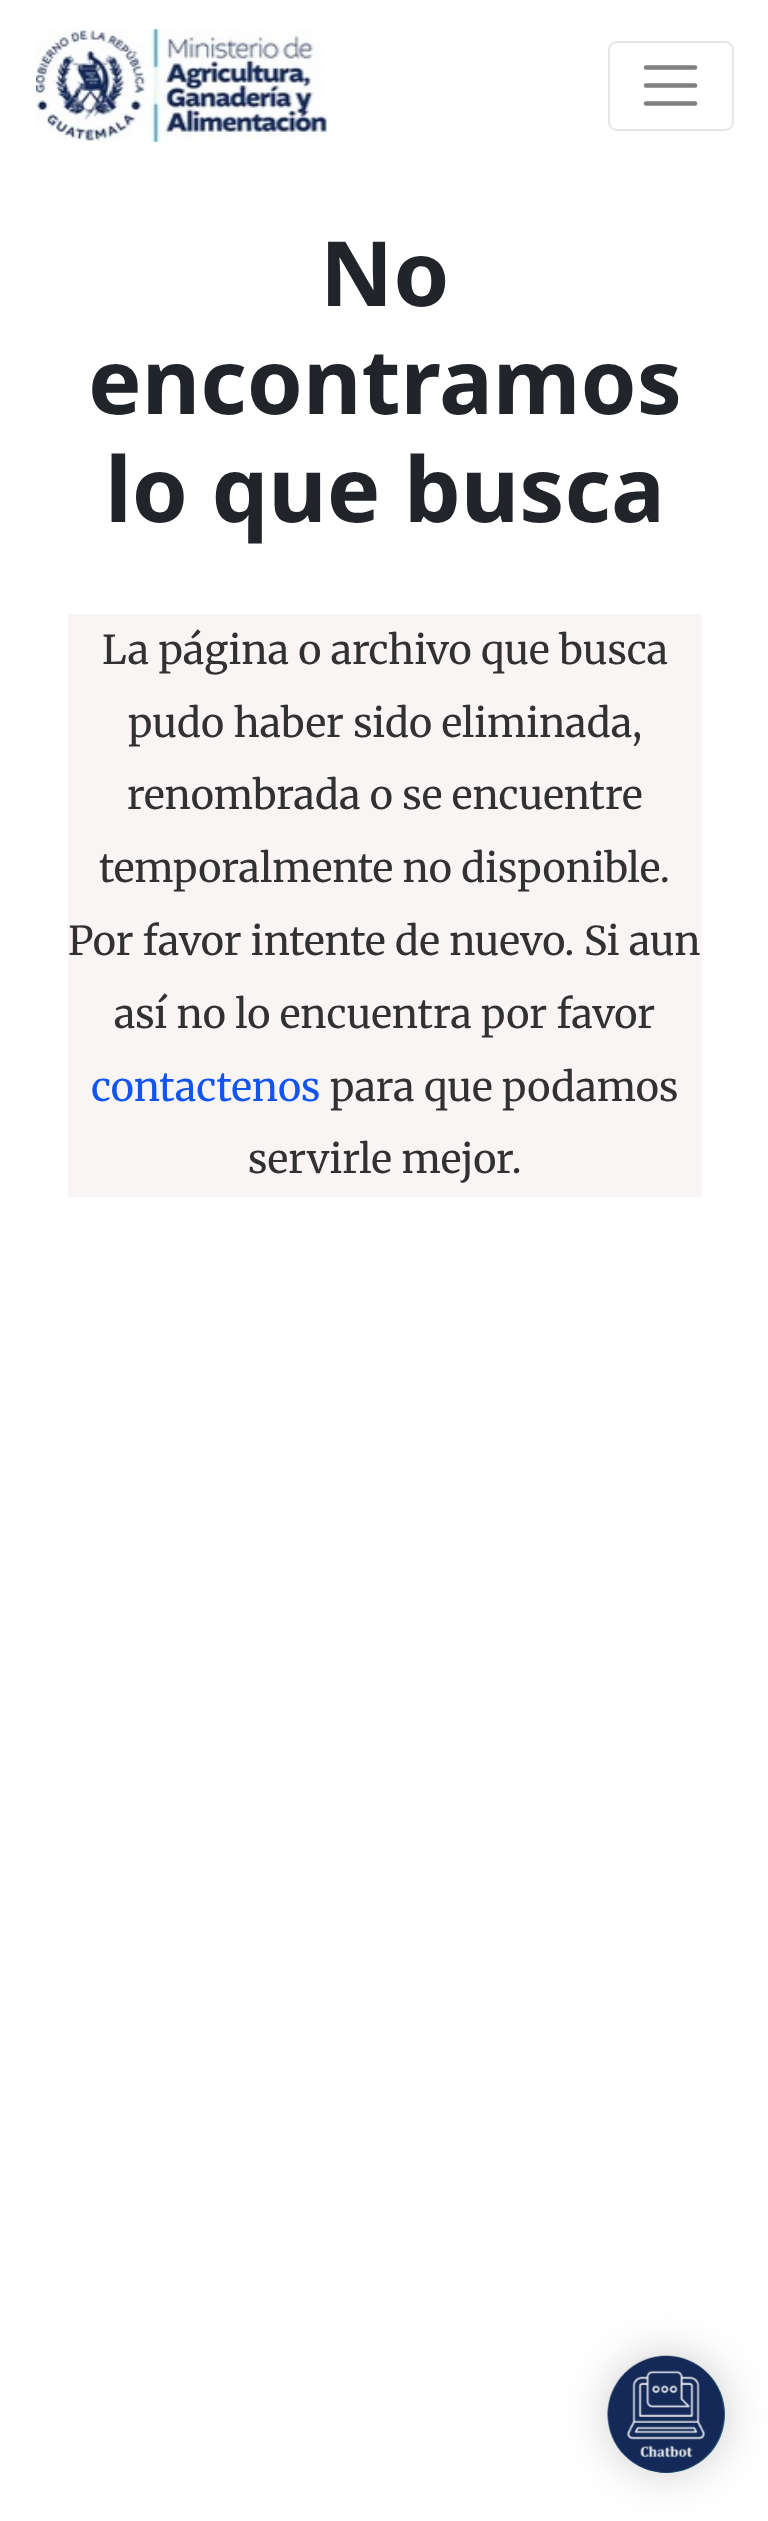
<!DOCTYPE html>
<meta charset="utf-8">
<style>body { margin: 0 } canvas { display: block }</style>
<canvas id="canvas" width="768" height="2521"></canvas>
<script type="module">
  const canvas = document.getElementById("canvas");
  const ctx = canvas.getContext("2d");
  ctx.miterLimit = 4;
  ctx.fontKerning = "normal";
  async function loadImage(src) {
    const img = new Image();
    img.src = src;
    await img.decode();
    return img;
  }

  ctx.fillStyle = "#ffffff";
  ctx.fillRect(0, 0, 768, 2521);
  ctx.drawImage(await loadImage("img1.png"), 36, 29, 291, 113);
  ctx.beginPath();
  ctx.roundRect(609, 42, 124, 88, 8);
  ctx.strokeStyle = "#e6e6e6";
  ctx.lineWidth = 2;
  ctx.stroke();
  ctx.beginPath();
  ctx.moveTo(646, 67.5);
  ctx.lineTo(695, 67.5);
  ctx.moveTo(646, 85.5);
  ctx.lineTo(695, 85.5);
  ctx.moveTo(646, 103.5);
  ctx.lineTo(695, 103.5);
  ctx.strokeStyle = "#808080";
  ctx.lineWidth = 4.5;
  ctx.lineCap = "round";
  ctx.stroke();
  ctx.font = "bold 90px Noto Sans";
  ctx.fillStyle = "#212529";
  ctx.fillText("No", 320, 306);
  ctx.fillText("encontramos", 88, 414);
  ctx.fillText("lo que busca", 105, 522);
  ctx.fillStyle = "#f9f5f5";
  ctx.fillRect(68, 614, 634, 583);
  ctx.font = "39.6px Merriweather";
  ctx.fillStyle = "#323131";
  ctx.fillText("La página o archivo que busca", 102, 664);
  ctx.fillText("pudo haber sido eliminada,", 128, 737);
  ctx.fillText("renombrada o se encuentre", 127, 809);
  ctx.fillText("temporalmente no disponible.", 99, 882);
  ctx.fillText("Por favor intente de nuevo. Si aun", 68, 955);
  ctx.fillText("así no lo encuentra por favor", 114, 1028);
  ctx.fillStyle = "#1254f0";
  ctx.fillText("contactenos", 91, 1101);
  ctx.fillStyle = "#323131";
  ctx.fillText("para que podamos", 330, 1101);
  ctx.fillText("servirle mejor.", 248, 1173);
  ctx.fillStyle = "rgba(0, 0, 0, 0.2)";
  ctx.filter = "blur(22.5px)";
  ctx.beginPath();
  ctx.roundRect(608, 2356, 117, 117, 58.5);
  ctx.fill();
  ctx.filter = "none";
  ctx.fillStyle = "#408591";
  ctx.beginPath();
  ctx.arc(666.5, 2414.5, 58.5, 0, Math.PI * 2);
  ctx.fill();
  ctx.drawImage(await loadImage("img2.png"), 607, 2355, 118, 118);
</script>
